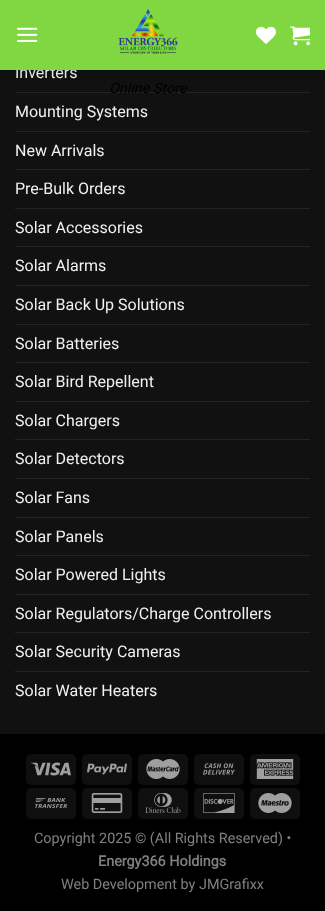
<!DOCTYPE html>
<meta charset="utf-8">
<style>body { margin: 0 } canvas { display: block }</style>
<canvas id="canvas" width="325" height="911"></canvas>
<script type="module">
  const canvas = document.getElementById("canvas");
  const ctx = canvas.getContext("2d");
  ctx.miterLimit = 4;
  ctx.fontKerning = "normal";
  async function loadImage(src) {
    const img = new Image();
    img.src = src;
    await img.decode();
    return img;
  }

  ctx.fillStyle = "#111111";
  ctx.fillRect(0, 0, 325, 911);
  ctx.font = "16px Roboto";
  ctx.fillStyle = "#f1f1f1";
  ctx.fillText("Inverters", 15, 78);
  ctx.fillStyle = "#242424";
  ctx.fillRect(15, 92, 295, 1);
  ctx.fillStyle = "#f1f1f1";
  ctx.fillText("Mounting Systems", 15, 117);
  ctx.fillStyle = "#242424";
  ctx.fillRect(15, 131, 295, 1);
  ctx.fillStyle = "#f1f1f1";
  ctx.fillText("New Arrivals", 15, 156);
  ctx.fillStyle = "#242424";
  ctx.fillRect(15, 169, 295, 1);
  ctx.fillStyle = "#f1f1f1";
  ctx.fillText("Pre-Bulk Orders", 15, 194);
  ctx.fillStyle = "#242424";
  ctx.fillRect(15, 208, 295, 1);
  ctx.fillStyle = "#f1f1f1";
  ctx.fillText("Solar Accessories", 15, 233);
  ctx.fillStyle = "#242424";
  ctx.fillRect(15, 246, 295, 1);
  ctx.fillStyle = "#f1f1f1";
  ctx.fillText("Solar Alarms", 15, 271);
  ctx.fillStyle = "#242424";
  ctx.fillRect(15, 285, 295, 1);
  ctx.fillStyle = "#f1f1f1";
  ctx.fillText("Solar Back Up Solutions", 15, 310);
  ctx.fillStyle = "#242424";
  ctx.fillRect(15, 324, 295, 1);
  ctx.fillStyle = "#f1f1f1";
  ctx.fillText("Solar Batteries", 15, 349);
  ctx.fillStyle = "#242424";
  ctx.fillRect(15, 362, 295, 1);
  ctx.fillStyle = "#f1f1f1";
  ctx.fillText("Solar Bird Repellent", 15, 387);
  ctx.fillStyle = "#242424";
  ctx.fillRect(15, 401, 295, 1);
  ctx.fillStyle = "#f1f1f1";
  ctx.fillText("Solar Chargers", 15, 426);
  ctx.fillStyle = "#242424";
  ctx.fillRect(15, 439, 295, 1);
  ctx.fillStyle = "#f1f1f1";
  ctx.fillText("Solar Detectors", 15, 464);
  ctx.fillStyle = "#242424";
  ctx.fillRect(15, 478, 295, 1);
  ctx.fillStyle = "#f1f1f1";
  ctx.fillText("Solar Fans", 15, 503);
  ctx.fillStyle = "#242424";
  ctx.fillRect(15, 517, 295, 1);
  ctx.fillStyle = "#f1f1f1";
  ctx.fillText("Solar Panels", 15, 542);
  ctx.fillStyle = "#242424";
  ctx.fillRect(15, 555, 295, 1);
  ctx.fillStyle = "#f1f1f1";
  ctx.fillText("Solar Powered Lights", 15, 580);
  ctx.fillStyle = "#242424";
  ctx.fillRect(15, 594, 295, 1);
  ctx.fillStyle = "#f1f1f1";
  ctx.fillText("Solar Regulators/Charge Controllers", 15, 619);
  ctx.fillStyle = "#242424";
  ctx.fillRect(15, 632, 295, 1);
  ctx.fillStyle = "#f1f1f1";
  ctx.fillText("Solar Security Cameras", 15, 657);
  ctx.fillStyle = "#242424";
  ctx.fillRect(15, 671, 295, 1);
  ctx.fillStyle = "#f1f1f1";
  ctx.fillText("Solar Water Heaters", 15, 696);
  ctx.fillStyle = "#000000";
  ctx.fillRect(0, 734, 325, 177);
  ctx.fillStyle = "#0f0f0f";
  ctx.beginPath();
  ctx.roundRect(26, 754, 50, 31, 5);
  ctx.fill();
  ctx.drawImage(await loadImage("img1.png"), 31, 762, 40, 14);
  ctx.beginPath();
  ctx.roundRect(82, 754, 50, 31, 5);
  ctx.fill();
  ctx.drawImage(await loadImage("img2.png"), 87, 763, 40, 12);
  ctx.beginPath();
  ctx.roundRect(138, 754, 50, 31, 5);
  ctx.fill();
  ctx.drawImage(await loadImage("img3.png"), 146, 759, 34, 20);
  ctx.beginPath();
  ctx.roundRect(194, 754, 50, 31, 5);
  ctx.fill();
  ctx.drawImage(await loadImage("img4.png"), 203, 763, 32, 12);
  ctx.beginPath();
  ctx.roundRect(250, 754, 50, 31, 5);
  ctx.fill();
  ctx.drawImage(await loadImage("img5.png"), 256, 759, 38, 20);
  ctx.beginPath();
  ctx.roundRect(26, 788, 50, 31, 5);
  ctx.fill();
  ctx.drawImage(await loadImage("img6.png"), 35, 798, 32, 10);
  ctx.beginPath();
  ctx.roundRect(82, 788, 50, 31, 5);
  ctx.fill();
  ctx.drawImage(await loadImage("img7.png"), 91, 793, 32, 20);
  ctx.beginPath();
  ctx.roundRect(138, 788, 50, 31, 5);
  ctx.fill();
  ctx.drawImage(await loadImage("img8.png"), 145, 793, 36, 20);
  ctx.beginPath();
  ctx.roundRect(194, 788, 50, 31, 5);
  ctx.fill();
  ctx.drawImage(await loadImage("img9.png"), 203, 793, 32, 20);
  ctx.beginPath();
  ctx.roundRect(250, 788, 50, 31, 5);
  ctx.fill();
  ctx.drawImage(await loadImage("img10.png"), 258, 793, 34, 20);
  ctx.font = "14.4px Roboto";
  ctx.fillStyle = "#808080";
  ctx.fillText("Copyright 2025 © (All Rights Reserved) •", 34, 843);
  ctx.font = "bold 14.4px Roboto";
  ctx.fillText("Energy366 Holdings", 98, 866);
  ctx.font = "14.4px Roboto";
  ctx.fillText("Web Development by JMGrafixx", 61, 889);
  ctx.fillStyle = "rgba(0, 0, 0, 0.15)";
  ctx.filter = "blur(5px)";
  ctx.beginPath();
  ctx.rect(1, 1, 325, 70);
  ctx.fill();
  ctx.filter = "none";
  ctx.fillStyle = "#81d742";
  ctx.fillRect(0, 0, 325, 70);
  ctx.drawImage(await loadImage("img11.png"), 17, 27, 21, 15);
  ctx.drawImage(await loadImage("img12.png"), 256, 26, 20, 18);
  ctx.drawImage(await loadImage("img13.png"), 290, 26, 20, 20);
  ctx.drawImage(await loadImage("img14.png"), 118, 9, 60, 45);
  ctx.font = "italic 14.4px Roboto";
  ctx.fillStyle = "#000000";
  ctx.fillText("Online Store", 109, 93);
</script>
